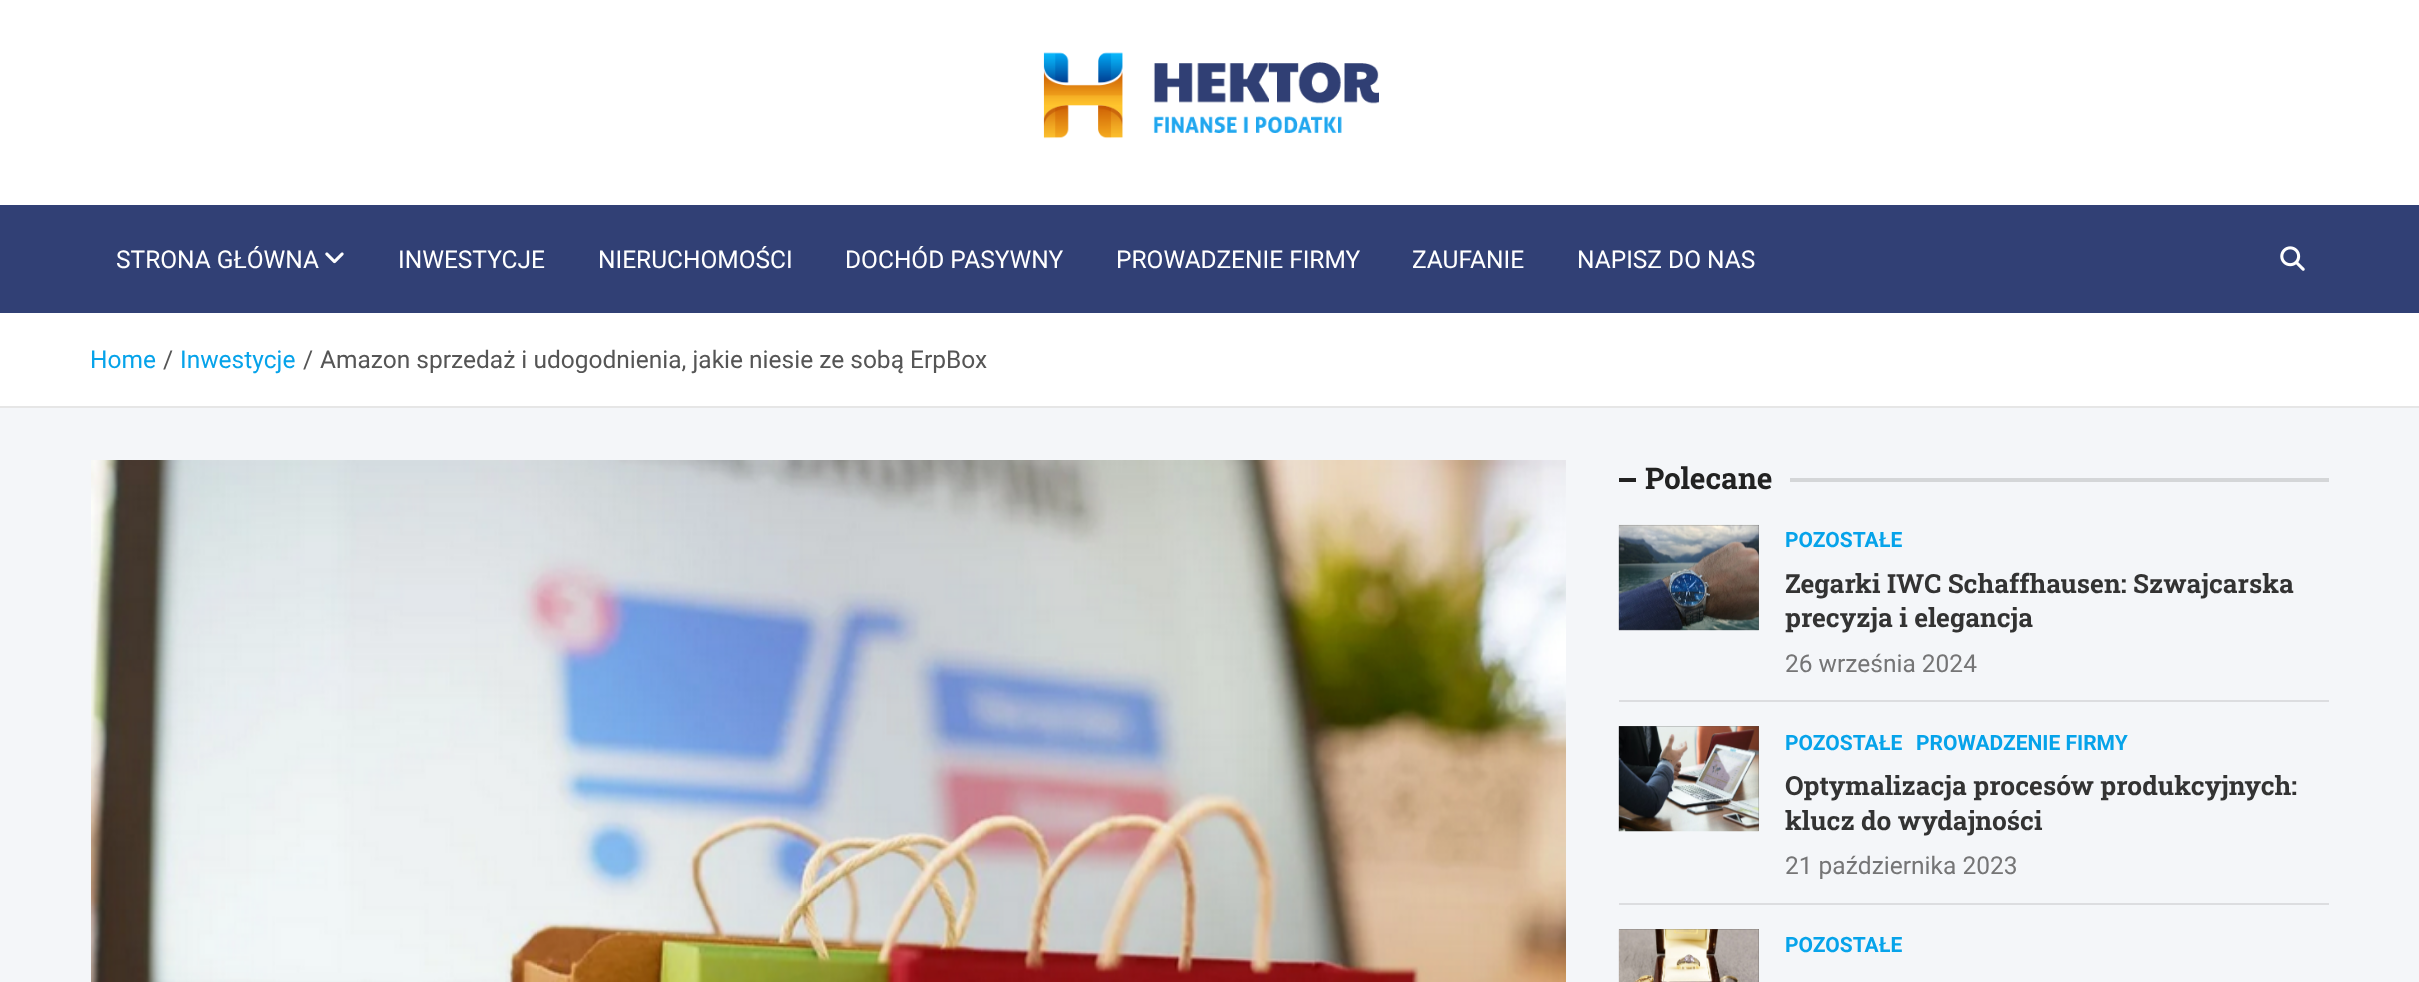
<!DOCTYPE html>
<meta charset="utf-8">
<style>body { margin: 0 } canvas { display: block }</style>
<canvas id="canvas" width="2419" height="982"></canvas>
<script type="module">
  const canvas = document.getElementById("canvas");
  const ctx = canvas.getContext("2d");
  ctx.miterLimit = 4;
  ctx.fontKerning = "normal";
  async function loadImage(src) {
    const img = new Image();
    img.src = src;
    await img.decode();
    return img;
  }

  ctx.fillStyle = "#f4f6f9";
  ctx.fillRect(0, 0, 2419, 982);
  ctx.fillStyle = "#ffffff";
  ctx.fillRect(0, 0, 2419, 205);
  ctx.drawImage(await loadImage("img1.png"), 1043, 52, 336, 87);
  ctx.fillStyle = "#314075";
  ctx.fillRect(0, 205, 2419, 108);
  ctx.font = "24.5px Roboto";
  ctx.fillStyle = "#ffffff";
  ctx.fillText("STRONA GŁÓWNA", 116, 268);
  ctx.drawImage(await loadImage("img2.png"), 325, 252, 19, 12);
  ctx.fillText("INWESTYCJE", 398, 268);
  ctx.fillText("NIERUCHOMOŚCI", 598, 268);
  ctx.fillText("DOCHÓD PASYWNY", 845, 268);
  ctx.fillText("PROWADZENIE FIRMY", 1116, 268);
  ctx.fillText("ZAUFANIE", 1412, 268);
  ctx.fillText("NAPISZ DO NAS", 1577, 268);
  ctx.drawImage(await loadImage("img3.png"), 2280, 246, 25, 25);
  ctx.fillRect(0, 313, 2419, 93);
  ctx.fillStyle = "#e6e6e6";
  ctx.fillRect(0, 406, 2419, 2);
  ctx.fillStyle = "#06a3ea";
  ctx.fillText("Home", 90, 368);
  ctx.fillStyle = "#555555";
  ctx.fillText("/", 163, 368);
  ctx.fillStyle = "#06a3ea";
  ctx.fillText("Inwestycje", 180, 368);
  ctx.fillStyle = "#555555";
  ctx.fillText("/", 303, 368);
  ctx.fillText("Amazon sprzedaż i udogodnienia, jakie niesie ze sobą ErpBox", 320, 368);
  ctx.drawImage(await loadImage("img4.png"), 91, 460, 1475, 522);
  ctx.fillStyle = "#222222";
  ctx.fillRect(1619, 478, 17, 4);
  ctx.font = "bold 29.75px Roboto Slab";
  ctx.fillText("Polecane", 1645, 489);
  ctx.fillStyle = "#d4d6d8";
  ctx.fillRect(1790, 478, 539, 4);
  ctx.fillStyle = "#555555";
  ctx.fillRect(1619, 525, 140, 105);
  ctx.drawImage(await loadImage("img5.png"), 1618, 524, 141, 107);
  ctx.font = "bold 21px Roboto";
  ctx.fillStyle = "#06a3ea";
  ctx.fillText("POZOSTAŁE", 1785, 547);
  ctx.font = "bold 26.25px Roboto Slab";
  ctx.fillStyle = "#333333";
  ctx.fillText("Zegarki IWC Schaffhausen: Szwajcarska", 1785, 593);
  ctx.fillText("precyzja i elegancja", 1785, 627);
  ctx.font = "24.5px Roboto";
  ctx.fillStyle = "#757576";
  ctx.fillText("26 września 2024", 1785, 672);
  ctx.fillStyle = "#dcdde0";
  ctx.fillRect(1619, 700, 710, 2);
  ctx.fillStyle = "#555555";
  ctx.fillRect(1619, 726, 140, 105);
  ctx.drawImage(await loadImage("img6.png"), 1618, 726, 141, 106);
  ctx.font = "bold 21px Roboto";
  ctx.fillStyle = "#06a3ea";
  ctx.fillText("POZOSTAŁE", 1785, 750);
  ctx.fillText("PROWADZENIE FIRMY", 1916, 750);
  ctx.font = "bold 26.25px Roboto Slab";
  ctx.fillStyle = "#333333";
  ctx.fillText("Optymalizacja procesów produkcyjnych:", 1785, 795);
  ctx.fillText("klucz do wydajności", 1785, 830);
  ctx.font = "24.5px Roboto";
  ctx.fillStyle = "#757576";
  ctx.fillText("21 października 2023", 1785, 874);
  ctx.fillStyle = "#dcdde0";
  ctx.fillRect(1619, 903, 710, 2);
  ctx.fillStyle = "#555555";
  ctx.fillRect(1619, 929, 140, 53);
  ctx.drawImage(await loadImage("img7.png"), 1618, 929, 141, 53);
  ctx.font = "bold 21px Roboto";
  ctx.fillStyle = "#06a3ea";
  ctx.fillText("POZOSTAŁE", 1785, 952);
</script>
